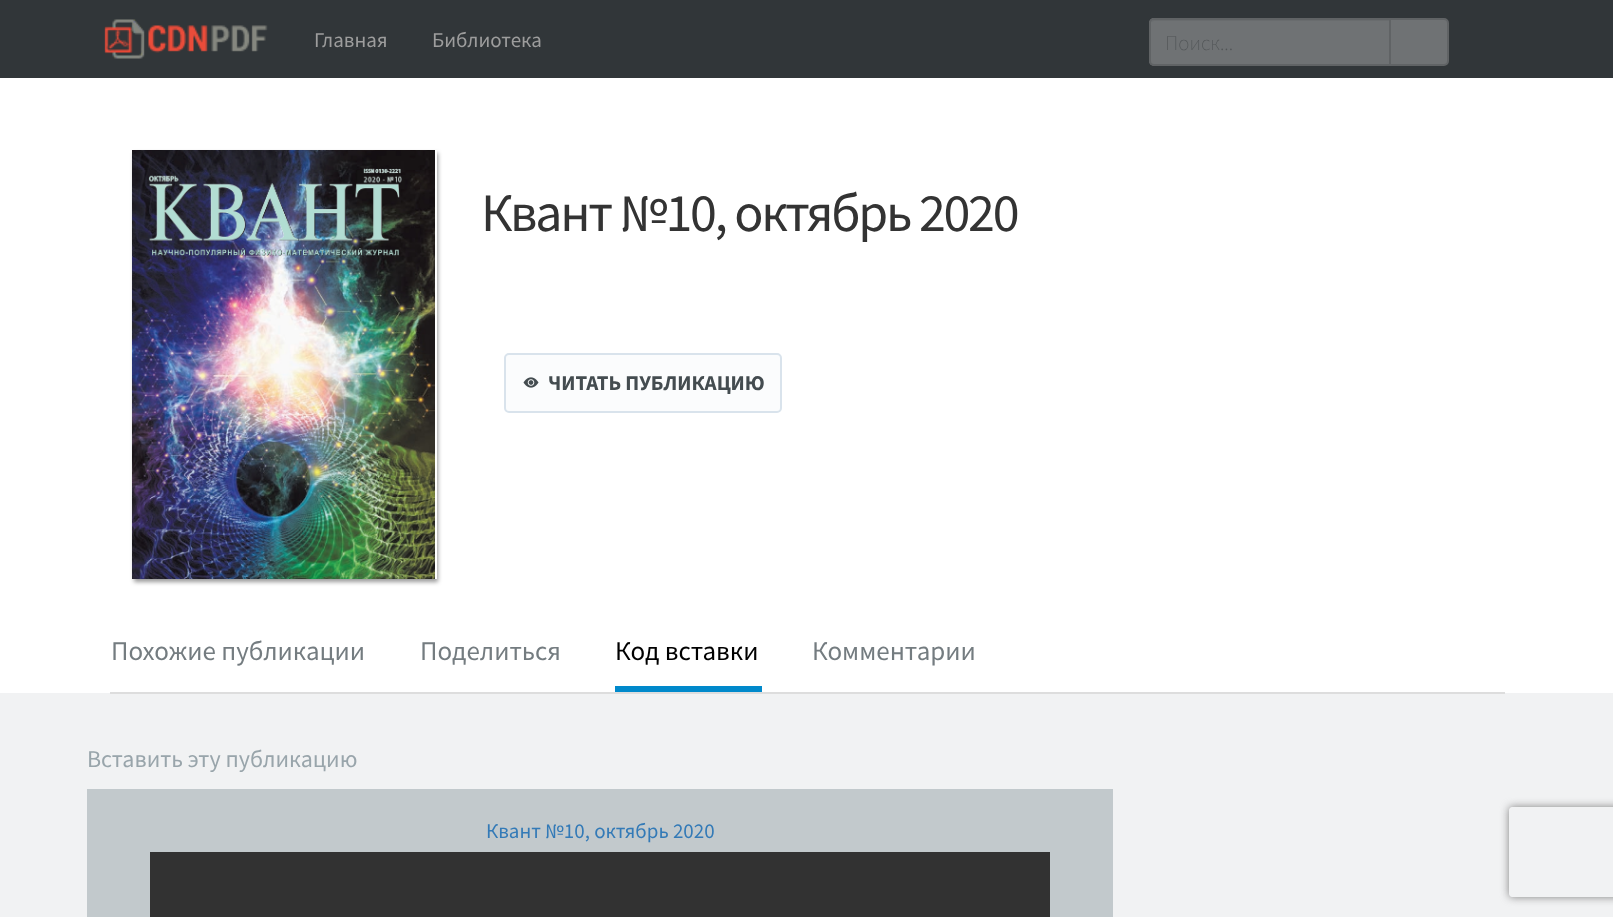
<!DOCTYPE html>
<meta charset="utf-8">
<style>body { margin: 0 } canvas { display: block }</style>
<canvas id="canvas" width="1613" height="917"></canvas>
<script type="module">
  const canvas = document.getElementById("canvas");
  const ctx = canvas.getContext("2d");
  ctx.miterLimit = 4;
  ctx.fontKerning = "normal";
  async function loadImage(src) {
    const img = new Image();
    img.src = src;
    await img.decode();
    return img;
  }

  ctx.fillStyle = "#ffffff";
  ctx.fillRect(0, 0, 1613, 917);
  ctx.fillStyle = "#313639";
  ctx.fillRect(0, 0, 1613, 78);
  ctx.drawImage(await loadImage("img1.png"), 104, 19, 164, 40);
  ctx.font = "21px Source Sans Pro";
  ctx.fillStyle = "#9d9d9d";
  ctx.fillText("Главная", 314, 47);
  ctx.fillText("Библиотека", 432, 47);
  ctx.fillStyle = "#6f7274";
  ctx.beginPath();
  ctx.roundRect(1149, 18, 242, 48, [5, 0, 0, 5]);
  ctx.fill();
  ctx.fillStyle = "#696c6e";
  ctx.beginPath();
  ctx.moveTo(1154, 21);
  ctx.lineTo(1389, 21);
  ctx.lineTo(1389, 20);
  ctx.lineTo(1154, 20);
  ctx.bezierCurveTo(1153, 20, 1152, 21, 1151, 22);
  ctx.closePath();
  ctx.fill();
  ctx.beginPath();
  ctx.roundRect(1150, 19, 240, 46, [4, 0, 0, 4]);
  ctx.strokeStyle = "#606365";
  ctx.lineWidth = 2;
  ctx.stroke();
  ctx.font = "200 21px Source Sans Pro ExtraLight";
  ctx.fillStyle = "#505456";
  ctx.fillText("Поиск...", 1165, 50);
  ctx.fillStyle = "#6f7274";
  ctx.beginPath();
  ctx.roundRect(1390, 19, 58, 46, [0, 4, 4, 0]);
  ctx.fill();
  ctx.stroke();
  ctx.fillStyle = "rgba(0, 0, 0, 0.4)";
  ctx.filter = "blur(2px)";
  ctx.beginPath();
  ctx.rect(134, 153, 304, 429);
  ctx.fill();
  ctx.filter = "none";
  ctx.fillStyle = "#ffffff";
  ctx.fillRect(435, 150, 2, 429);
  ctx.drawImage(await loadImage("img2.png"), 132, 150, 303, 429);
  ctx.letterSpacing = "-2.25px";
  ctx.font = "54px Source Sans Pro";
  ctx.fillStyle = "#333333";
  ctx.fillText("Квант №10, октябрь 2020", 481, 231);
  ctx.fillStyle = "#fbfcfd";
  ctx.beginPath();
  ctx.roundRect(505, 354, 276, 58, 4);
  ctx.fill();
  ctx.strokeStyle = "#d9e3ec";
  ctx.stroke();
  ctx.drawImage(await loadImage("img3.png"), 523, 377, 16, 11);
  ctx.letterSpacing = "0px";
  ctx.font = "bold 21px Source Sans Pro";
  ctx.fillStyle = "#444c50";
  ctx.fillText("ЧИТАТЬ ПУБЛИКАЦИЮ", 548, 390);
  ctx.fillStyle = "#f1f2f3";
  ctx.fillRect(0, 693, 1613, 224);
  ctx.fillStyle = "#dddddd";
  ctx.fillRect(110, 692, 1395, 2);
  ctx.font = "27px Source Sans Pro";
  ctx.fillStyle = "#747c80";
  ctx.fillText("Похожие публикации", 111, 660);
  ctx.fillText("Поделиться", 420, 660);
  ctx.fillStyle = "#0089cb";
  ctx.fillRect(615, 686, 147, 6);
  ctx.fillStyle = "#000000";
  ctx.fillText("Код вставки", 615, 660);
  ctx.fillStyle = "#747c80";
  ctx.fillText("Комментарии", 812, 660);
  ctx.font = "24px Source Sans Pro";
  ctx.fillStyle = "#99a5ab";
  ctx.fillText("Вставить эту публикацию", 87, 767);
  ctx.fillStyle = "#c2c9cc";
  ctx.fillRect(87, 789, 1026, 128);
  ctx.font = "21px Source Sans Pro";
  ctx.fillStyle = "#337ab7";
  ctx.fillText("Квант №10, октябрь 2020", 486, 838);
  ctx.fillStyle = "#323232";
  ctx.fillRect(150, 852, 900, 65);
  ctx.save();
  ctx.beginPath();
  ctx.moveTo(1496, 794);
  ctx.lineTo(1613, 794);
  ctx.lineTo(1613, 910);
  ctx.lineTo(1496, 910);
  ctx.closePath();
  ctx.moveTo(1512, 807);
  ctx.lineTo(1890, 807);
  ctx.bezierCurveTo(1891.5, 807, 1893, 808.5, 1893, 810);
  ctx.lineTo(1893, 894);
  ctx.bezierCurveTo(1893, 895.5, 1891.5, 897, 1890, 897);
  ctx.lineTo(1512, 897);
  ctx.bezierCurveTo(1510.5, 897, 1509, 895.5, 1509, 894);
  ctx.lineTo(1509, 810);
  ctx.bezierCurveTo(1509, 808.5, 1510.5, 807, 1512, 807);
  ctx.closePath();
  ctx.clip("evenodd");
  ctx.fillStyle = "#808080";
  ctx.filter = "blur(4px)";
  ctx.beginPath();
  ctx.roundRect(1509, 807, 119, 90, 3);
  ctx.fill();
  ctx.filter = "none";
  ctx.restore();
</script>
